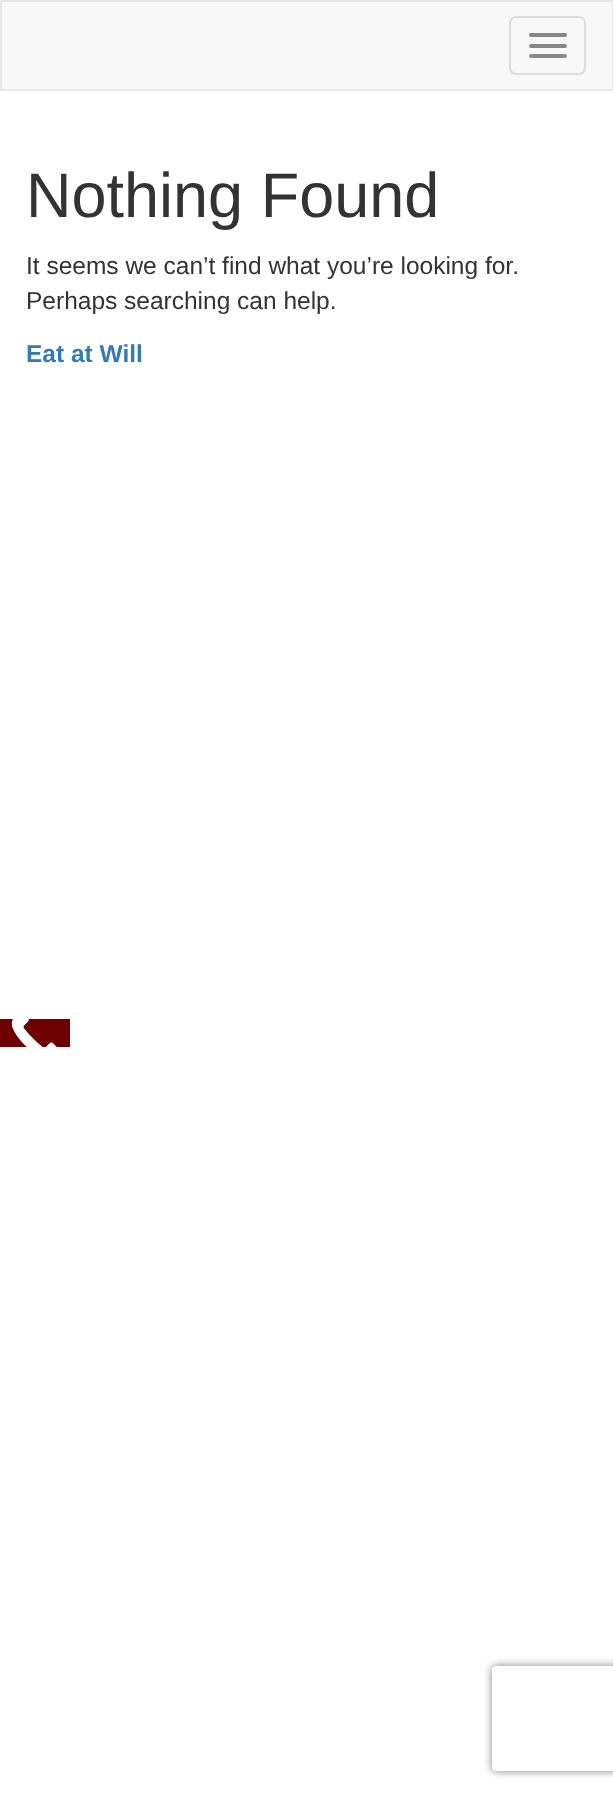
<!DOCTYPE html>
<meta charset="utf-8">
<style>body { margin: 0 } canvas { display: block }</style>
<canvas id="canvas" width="613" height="1794"></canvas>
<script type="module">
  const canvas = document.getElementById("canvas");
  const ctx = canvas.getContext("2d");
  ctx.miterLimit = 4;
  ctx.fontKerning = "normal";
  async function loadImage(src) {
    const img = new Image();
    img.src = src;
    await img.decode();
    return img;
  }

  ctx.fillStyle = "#ffffff";
  ctx.fillRect(0, 0, 613, 1794);
  ctx.fillStyle = "#f8f8f8";
  ctx.beginPath();
  ctx.rect(1, 1, 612, 89);
  ctx.fill();
  ctx.strokeStyle = "#e7e7e7";
  ctx.lineWidth = 2;
  ctx.stroke();
  ctx.beginPath();
  ctx.roundRect(510, 17, 75, 57, 6);
  ctx.strokeStyle = "#dddddd";
  ctx.stroke();
  ctx.fillStyle = "#888888";
  ctx.beginPath();
  ctx.roundRect(529, 33, 38, 4, 2);
  ctx.fill();
  ctx.beginPath();
  ctx.roundRect(529, 44, 38, 4, 2);
  ctx.fill();
  ctx.beginPath();
  ctx.roundRect(529, 54, 38, 4, 2);
  ctx.fill();
  ctx.font = "63px Liberation Sans";
  ctx.fillStyle = "#333333";
  ctx.fillText("Nothing Found", 26, 217);
  ctx.font = "24.5px Liberation Sans";
  ctx.fillText("It seems we can’t find what you’re looking for.", 26, 274);
  ctx.fillText("Perhaps searching can help.", 26, 309);
  ctx.font = "bold 24.5px Liberation Sans";
  ctx.fillStyle = "#337ab7";
  ctx.fillText("Eat at Will", 26, 362);
  ctx.fillStyle = "#6d0000";
  ctx.fillRect(0, 1019, 70, 28);
  ctx.drawImage(await loadImage("img1.png"), 11, 1019, 46, 28);
  ctx.save();
  ctx.beginPath();
  ctx.moveTo(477, 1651);
  ctx.lineTo(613, 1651);
  ctx.lineTo(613, 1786);
  ctx.lineTo(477, 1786);
  ctx.closePath();
  ctx.moveTo(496, 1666);
  ctx.lineTo(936, 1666);
  ctx.bezierCurveTo(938, 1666, 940, 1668, 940, 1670);
  ctx.lineTo(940, 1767);
  ctx.bezierCurveTo(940, 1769, 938, 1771, 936, 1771);
  ctx.lineTo(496, 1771);
  ctx.bezierCurveTo(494, 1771, 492, 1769, 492, 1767);
  ctx.lineTo(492, 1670);
  ctx.bezierCurveTo(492, 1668, 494, 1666, 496, 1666);
  ctx.closePath();
  ctx.clip("evenodd");
  ctx.fillStyle = "#808080";
  ctx.filter = "blur(4.5px)";
  ctx.beginPath();
  ctx.roundRect(492, 1666, 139, 105, 4);
  ctx.fill();
  ctx.filter = "none";
  ctx.restore();
</script>
